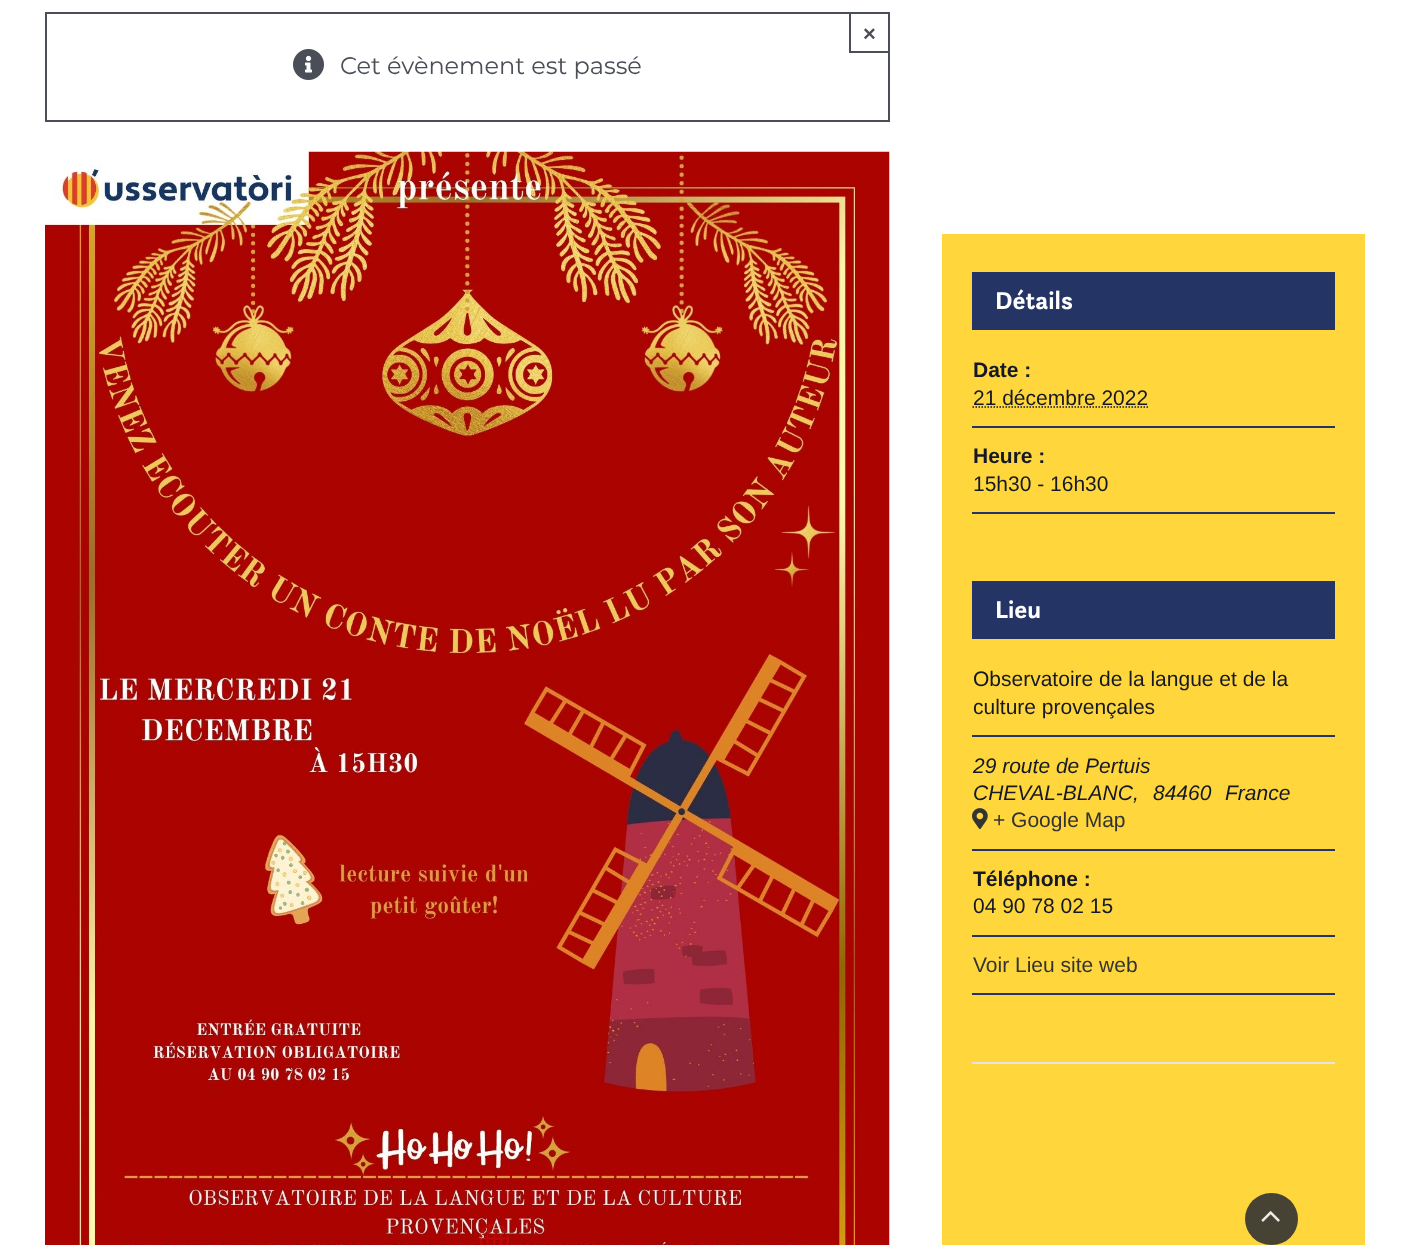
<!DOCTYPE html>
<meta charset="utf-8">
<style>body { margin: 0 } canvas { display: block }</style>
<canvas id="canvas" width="1410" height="1245"></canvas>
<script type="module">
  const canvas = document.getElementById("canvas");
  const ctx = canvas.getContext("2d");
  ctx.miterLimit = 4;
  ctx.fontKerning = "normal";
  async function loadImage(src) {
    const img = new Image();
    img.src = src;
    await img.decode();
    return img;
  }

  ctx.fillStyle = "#ffffff";
  ctx.fillRect(0, 0, 1410, 1245);
  ctx.strokeStyle = "#4a4e57";
  ctx.lineWidth = 2;
  ctx.strokeRect(46, 13, 843, 108);
  ctx.strokeRect(850, 13, 39, 39);
  ctx.font = "bold 22px Liberation Sans";
  ctx.fillStyle = "#4a4e57";
  ctx.fillText("×", 863, 41);
  ctx.drawImage(await loadImage("img1.png"), 293, 49, 31, 31);
  ctx.font = "24px Montserrat";
  ctx.fillText("Cet évènement est passé", 340, 74);
  ctx.drawImage(await loadImage("img2.png"), 45, 151, 845, 1094);
  ctx.fillStyle = "#ffd73c";
  ctx.fillRect(942, 234, 423, 1011);
  ctx.fillStyle = "#243465";
  ctx.fillRect(972, 272, 363, 58);
  ctx.font = "bold 25.5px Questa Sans";
  ctx.fillStyle = "#ffffff";
  ctx.fillText("Détails", 995, 309);
  ctx.font = "bold 21px Liberation Sans";
  ctx.fillStyle = "#141827";
  ctx.fillText("Date :", 973, 377);
  ctx.fillStyle = "#243465";
  ctx.fillRect(972, 426, 363, 2);
  ctx.font = "21px Liberation Sans";
  ctx.fillStyle = "#141827";
  ctx.fillText("21 décembre 2022", 973, 405);
  ctx.beginPath();
  ctx.moveTo(972.5, 407);
  ctx.lineTo(1148, 407);
  ctx.strokeStyle = "#141827";
  ctx.lineWidth = 1.5;
  ctx.setLineDash([1.5, 1.5]);
  ctx.stroke();
  ctx.font = "bold 21px Liberation Sans";
  ctx.fillText("Heure :", 973, 463);
  ctx.fillStyle = "#243465";
  ctx.fillRect(972, 512, 363, 2);
  ctx.font = "21px Liberation Sans";
  ctx.fillStyle = "#141827";
  ctx.fillText("15h30 - 16h30", 973, 491);
  ctx.fillStyle = "#243465";
  ctx.fillRect(972, 581, 363, 58);
  ctx.font = "bold 25.5px Questa Sans";
  ctx.fillStyle = "#ffffff";
  ctx.fillText("Lieu", 995, 618);
  ctx.fillStyle = "#243465";
  ctx.fillRect(972, 735, 363, 2);
  ctx.font = "21px Liberation Sans";
  ctx.fillStyle = "#141827";
  ctx.fillText("Observatoire de la langue et de la", 973, 686);
  ctx.fillText("culture provençales", 973, 714);
  ctx.fillStyle = "#243465";
  ctx.fillRect(972, 849, 363, 2);
  ctx.font = "italic 21px Liberation Sans";
  ctx.fillStyle = "#141827";
  ctx.fillText("29 route de Pertuis", 973, 773);
  ctx.fillText("CHEVAL-BLANC,", 973, 800);
  ctx.fillText("84460", 1153, 800);
  ctx.fillText("France", 1225, 800);
  ctx.drawImage(await loadImage("img3.png"), 972, 808, 16, 22);
  ctx.font = "21px Liberation Sans";
  ctx.fillStyle = "#333333";
  ctx.fillText("+ Google Map", 993, 827);
  ctx.font = "bold 21px Liberation Sans";
  ctx.fillStyle = "#141827";
  ctx.fillText("Téléphone :", 973, 886);
  ctx.fillStyle = "#243465";
  ctx.fillRect(972, 935, 363, 2);
  ctx.font = "21px Liberation Sans";
  ctx.fillStyle = "#141827";
  ctx.fillText("04 90 78 02 15", 973, 913);
  ctx.fillStyle = "#243465";
  ctx.fillRect(972, 993, 363, 2);
  ctx.fillStyle = "#333333";
  ctx.fillText("Voir Lieu site web", 973, 972);
  ctx.fillStyle = "#e4e4e4";
  ctx.fillRect(972, 1062, 363, 2);
  ctx.fillStyle = "#474334";
  ctx.beginPath();
  ctx.roundRect(1245, 1193, 53, 52, 26);
  ctx.fill();
  ctx.drawImage(await loadImage("img4.png"), 1261, 1211, 19, 11);
</script>
